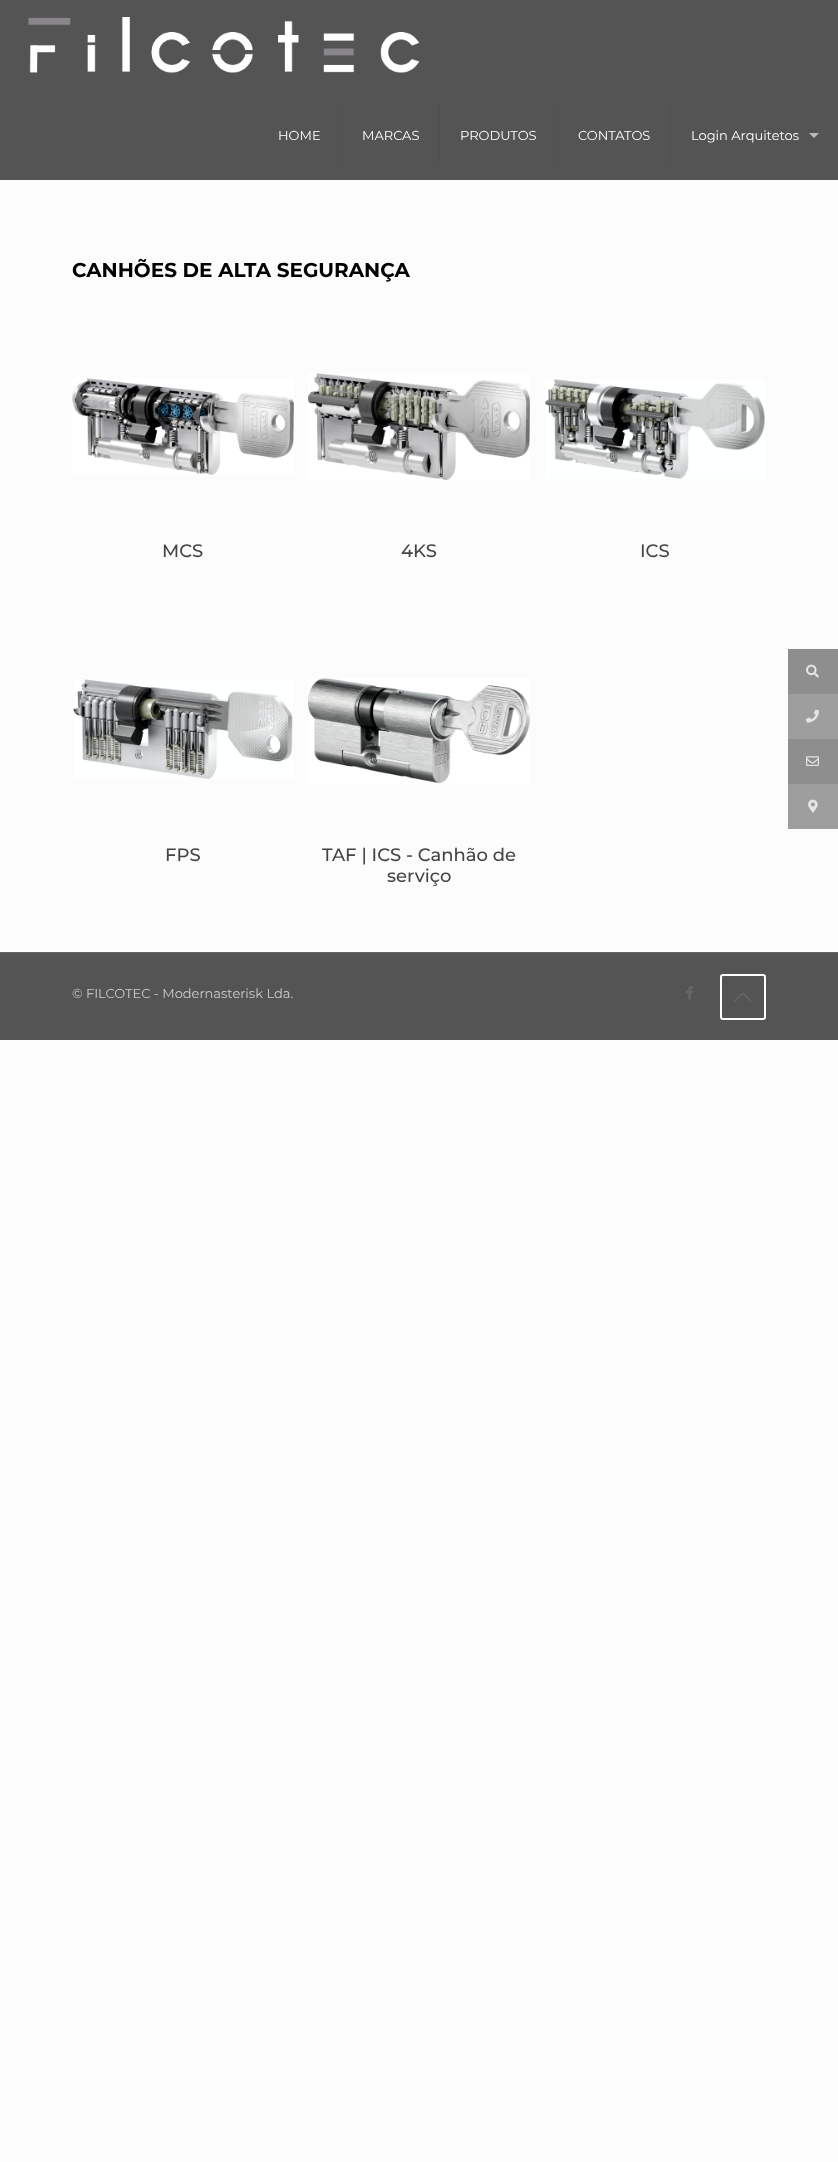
<!DOCTYPE html>
<meta charset="utf-8">
<style>body { margin: 0 } canvas { display: block }</style>
<canvas id="canvas" width="838" height="2162"></canvas>
<script type="module">
  const canvas = document.getElementById("canvas");
  const ctx = canvas.getContext("2d");
  ctx.miterLimit = 4;
  ctx.fontKerning = "normal";
  async function loadImage(src) {
    const img = new Image();
    img.src = src;
    await img.decode();
    return img;
  }

  ctx.fillStyle = "#fcfcfc";
  ctx.fillRect(0, 0, 838, 2162);
  ctx.fillStyle = "#545454";
  ctx.fillRect(0, 0, 838, 180);
  ctx.drawImage(await loadImage("img1.png"), 28, 17, 392, 56);
  ctx.fillStyle = "#505050";
  ctx.fillRect(341, 105, 1, 60);
  ctx.font = "13px Montserrat";
  ctx.fillStyle = "#ffffff";
  ctx.fillText("HOME", 278, 140);
  ctx.fillStyle = "#505050";
  ctx.fillRect(439, 105, 1, 60);
  ctx.fillStyle = "#ffffff";
  ctx.fillText("MARCAS", 362, 140);
  ctx.fillStyle = "#505050";
  ctx.fillRect(557, 105, 1, 60);
  ctx.fillStyle = "#ffffff";
  ctx.fillText("PRODUTOS", 460, 140);
  ctx.fillStyle = "#505050";
  ctx.fillRect(670, 105, 1, 60);
  ctx.fillStyle = "#ffffff";
  ctx.fillText("CONTATOS", 578, 140);
  ctx.fillText("Login Arquitetos", 691, 140);
  ctx.fillStyle = "#bbbbbb";
  ctx.beginPath();
  ctx.moveTo(809, 133);
  ctx.lineTo(819, 133);
  ctx.lineTo(814, 138);
  ctx.closePath();
  ctx.fill();
  ctx.font = "bold 20px Montserrat";
  ctx.fillStyle = "#000000";
  ctx.fillText("CANHÕES DE ALTA SEGURANÇA", 72, 277);
  ctx.drawImage(await loadImage("img2.png"), 72, 378, 222, 97);
  ctx.font = "500 18px Montserrat";
  ctx.fillStyle = "#444444";
  ctx.fillText("MCS", 162, 557);
  ctx.drawImage(await loadImage("img3.png"), 308, 373, 222, 107);
  ctx.fillText("4KS", 401, 557);
  ctx.drawImage(await loadImage("img4.png"), 545, 379, 220, 100);
  ctx.fillText("ICS", 640, 557);
  ctx.drawImage(await loadImage("img5.png"), 73, 679, 220, 100);
  ctx.fillText("FPS", 165, 861);
  ctx.drawImage(await loadImage("img6.png"), 308, 678, 222, 106);
  ctx.fillText("TAF | ICS - Canhão de", 322, 861);
  ctx.fillText("serviço", 387, 882);
  ctx.fillStyle = "#545454";
  ctx.fillRect(0, 953, 838, 87);
  ctx.fillStyle = "#656565";
  ctx.fillRect(0, 952, 838, 1);
  ctx.font = "13px Montserrat";
  ctx.fillStyle = "#cccccc";
  ctx.fillText("© FILCOTEC - Modernasterisk Lda.", 72, 998);
  ctx.drawImage(await loadImage("img7.png"), 686, 986, 8, 14);
  ctx.beginPath();
  ctx.roundRect(721, 975, 44, 44, 2);
  ctx.strokeStyle = "#ffffff";
  ctx.lineWidth = 2;
  ctx.stroke();
  ctx.drawImage(await loadImage("img8.png"), 734, 992, 17, 10);
  ctx.fillStyle = "#8e8e8e";
  ctx.fillRect(788, 649, 50, 45);
  ctx.drawImage(await loadImage("img9.png"), 806, 664, 13, 14);
  ctx.fillStyle = "#9e9e9e";
  ctx.fillRect(788, 694, 50, 45);
  ctx.drawImage(await loadImage("img10.png"), 806, 709, 13, 14);
  ctx.fillStyle = "#8e8e8e";
  ctx.fillRect(788, 739, 50, 45);
  ctx.drawImage(await loadImage("img11.png"), 806, 756, 13, 10);
  ctx.fillStyle = "#9e9e9e";
  ctx.fillRect(788, 784, 50, 45);
  ctx.drawImage(await loadImage("img12.png"), 808, 799, 10, 14);
</script>
